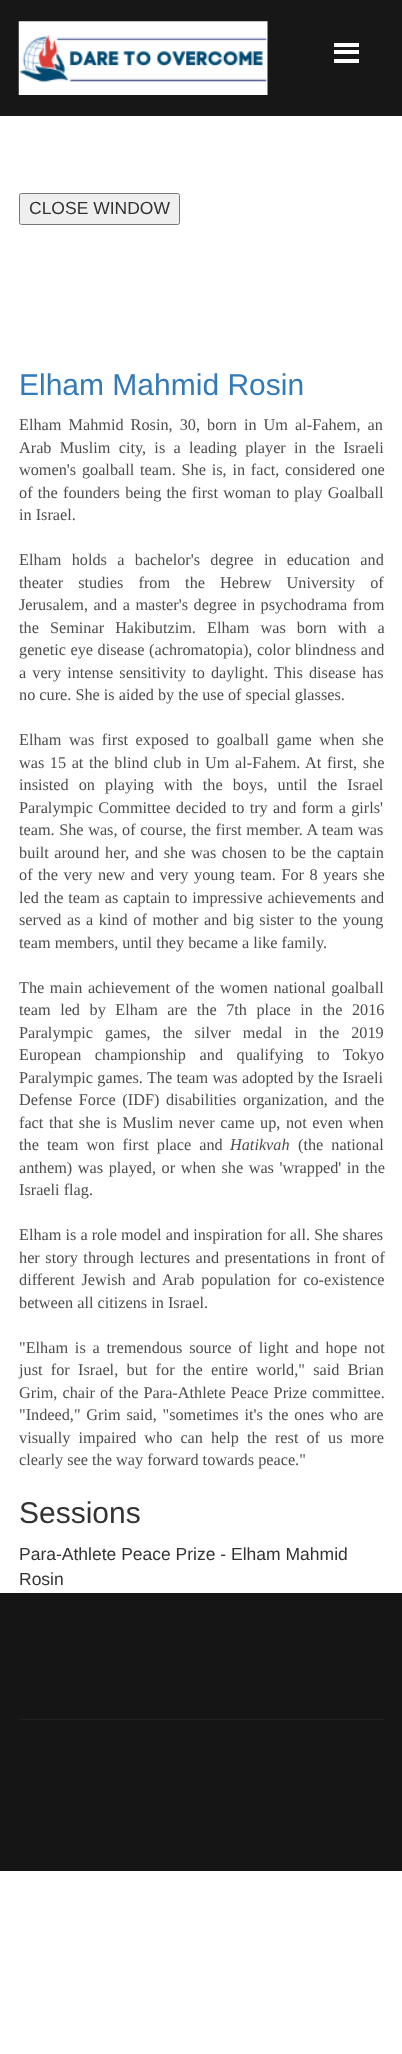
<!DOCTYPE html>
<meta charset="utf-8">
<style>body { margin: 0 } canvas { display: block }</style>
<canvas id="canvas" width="402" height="2054"></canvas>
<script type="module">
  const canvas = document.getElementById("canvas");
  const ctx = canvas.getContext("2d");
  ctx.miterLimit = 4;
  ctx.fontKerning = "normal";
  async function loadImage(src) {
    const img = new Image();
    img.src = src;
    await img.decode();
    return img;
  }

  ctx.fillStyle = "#ffffff";
  ctx.fillRect(0, 0, 402, 2054);
  ctx.fillStyle = "#171717";
  ctx.fillRect(0, 0, 402, 116);
  ctx.drawImage(await loadImage("img1.png"), 18, 21, 250, 74);
  ctx.fillStyle = "#ffffff";
  ctx.fillRect(334, 43, 25, 4);
  ctx.fillRect(334, 50, 25, 4);
  ctx.fillRect(334, 59, 25, 4);
  ctx.fillStyle = "#efefef";
  ctx.beginPath();
  ctx.roundRect(19.5, 193.5, 160, 31, 2);
  ctx.fill();
  ctx.strokeStyle = "#767676";
  ctx.stroke();
  ctx.font = "17.5px Liberation Sans";
  ctx.fillStyle = "#333333";
  ctx.fillText("CLOSE WINDOW", 29, 214);
  ctx.font = "30px Liberation Sans";
  ctx.fillStyle = "#337ab7";
  ctx.fillText("Elham Mahmid Rosin", 19, 395);
  ctx.wordSpacing = "3px";
  ctx.font = "16.25px Liberation Serif";
  ctx.fillStyle = "#4d4d4d";
  ctx.fillText("Elham Mahmid Rosin, 30, born in Um al-Fahem, an", 19, 430);
  ctx.wordSpacing = "4.25px";
  ctx.fillText("Arab Muslim city, is a leading player in the Israeli", 19, 453);
  ctx.wordSpacing = "1.75px";
  ctx.fillText("women's goalball team. She is, in fact, considered one", 19, 475);
  ctx.wordSpacing = "1.25px";
  ctx.fillText("of the founders being the first woman to play Goalball", 19, 498);
  ctx.wordSpacing = "0px";
  ctx.fillText("in Israel.", 19, 520);
  ctx.wordSpacing = "6.25px";
  ctx.fillText("Elham holds a bachelor's degree in education and", 19, 565);
  ctx.wordSpacing = "11px";
  ctx.fillText("theater studies from the Hebrew University of", 19, 588);
  ctx.wordSpacing = "1.5px";
  ctx.fillText("Jerusalem, and a master's degree in psychodrama from", 19, 610);
  ctx.wordSpacing = "7px";
  ctx.fillText("the Seminar Hakibutzim. Elham was born with a", 19, 633);
  ctx.wordSpacing = "0.5px";
  ctx.fillText("genetic eye disease (achromatopia), color blindness and", 19, 655);
  ctx.wordSpacing = "2px";
  ctx.fillText("a very intense sensitivity to daylight. This disease has", 19, 678);
  ctx.wordSpacing = "0px";
  ctx.fillText("no cure. She is aided by the use of special glasses.", 19, 700);
  ctx.wordSpacing = "3.5px";
  ctx.fillText("Elham was first exposed to goalball game when she", 19, 745);
  ctx.wordSpacing = "1.5px";
  ctx.fillText("was 15 at the blind club in Um al-Fahem. At first, she", 19, 768);
  ctx.wordSpacing = "6px";
  ctx.fillText("insisted on playing with the boys, until the Israel", 19, 790);
  ctx.wordSpacing = "1.25px";
  ctx.fillText("Paralympic Committee decided to try and form a girls'", 19, 813);
  ctx.wordSpacing = "0.5px";
  ctx.fillText("team. She was, of course, the first member. A team was", 19, 835);
  ctx.wordSpacing = "1.5px";
  ctx.fillText("built around her, and she was chosen to be the captain", 19, 858);
  ctx.fillText("of the very new and very young team. For 8 years she", 19, 880);
  ctx.wordSpacing = "0.75px";
  ctx.fillText("led the team as captain to impressive achievements and", 19, 903);
  ctx.wordSpacing = "1.5px";
  ctx.fillText("served as a kind of mother and big sister to the young", 19, 925);
  ctx.wordSpacing = "0px";
  ctx.fillText("team members, until they became a like family.", 19, 948);
  ctx.wordSpacing = "1.5px";
  ctx.fillText("The main achievement of the women national goalball", 19, 993);
  ctx.wordSpacing = "5.5px";
  ctx.fillText("team led by Elham are the 7th place in the 2016", 19, 1015);
  ctx.wordSpacing = "8px";
  ctx.fillText("Paralympic games, the silver medal in the 2019", 19, 1038);
  ctx.wordSpacing = "9.5px";
  ctx.fillText("European championship and qualifying to Tokyo", 19, 1060);
  ctx.wordSpacing = "0.25px";
  ctx.fillText("Paralympic games. The team was adopted by the Israeli", 19, 1083);
  ctx.wordSpacing = "2.5px";
  ctx.fillText("Defense Force (IDF) disabilities organization, and the", 19, 1105);
  ctx.wordSpacing = "1.5px";
  ctx.fillText("fact that she is Muslim never came up, not even when", 19, 1128);
  ctx.wordSpacing = "4px";
  ctx.fillText("the team won first place and", 19, 1150);
  ctx.wordSpacing = "0px";
  ctx.font = "italic 16.25px Liberation Serif";
  ctx.fillText("Hatikvah", 230, 1150);
  ctx.wordSpacing = "4px";
  ctx.font = "16.25px Liberation Serif";
  ctx.fillText("(the national", 298, 1150);
  ctx.wordSpacing = "1.5px";
  ctx.fillText("anthem) was played, or when she was 'wrapped' in the", 19, 1173);
  ctx.wordSpacing = "0px";
  ctx.fillText("Israeli flag.", 19, 1195);
  ctx.fillText("Elham is a role model and inspiration for all. She shares", 19, 1240);
  ctx.wordSpacing = "1.5px";
  ctx.fillText("her story through lectures and presentations in front of", 19, 1263);
  ctx.wordSpacing = "2.75px";
  ctx.fillText("different Jewish and Arab population for co-existence", 19, 1285);
  ctx.wordSpacing = "0px";
  ctx.fillText("between all citizens in Israel.", 19, 1308);
  ctx.wordSpacing = "2.75px";
  ctx.fillText("\"Elham is a tremendous source of light and hope not", 19, 1353);
  ctx.wordSpacing = "4.25px";
  ctx.fillText("just for Israel, but for the entire world,\" said Brian", 19, 1375);
  ctx.wordSpacing = "1px";
  ctx.fillText("Grim, chair of the Para-Athlete Peace Prize committee.", 19, 1398);
  ctx.wordSpacing = "1.75px";
  ctx.fillText("\"Indeed,\" Grim said, \"sometimes it's the ones who are", 19, 1420);
  ctx.wordSpacing = "4px";
  ctx.fillText("visually impaired who can help the rest of us more", 19, 1443);
  ctx.wordSpacing = "0px";
  ctx.fillText("clearly see the way forward towards peace.\"", 19, 1465);
  ctx.font = "30px Liberation Sans";
  ctx.fillStyle = "#333333";
  ctx.fillText("Sessions", 19, 1523);
  ctx.font = "17.5px Liberation Sans";
  ctx.fillText("Para-Athlete Peace Prize - Elham Mahmid", 19, 1560);
  ctx.fillText("Rosin", 19, 1585);
  ctx.fillStyle = "#151515";
  ctx.fillRect(0, 1593, 402, 278);
  ctx.fillStyle = "#202020";
  ctx.fillRect(19, 1719, 365, 1);
</script>
